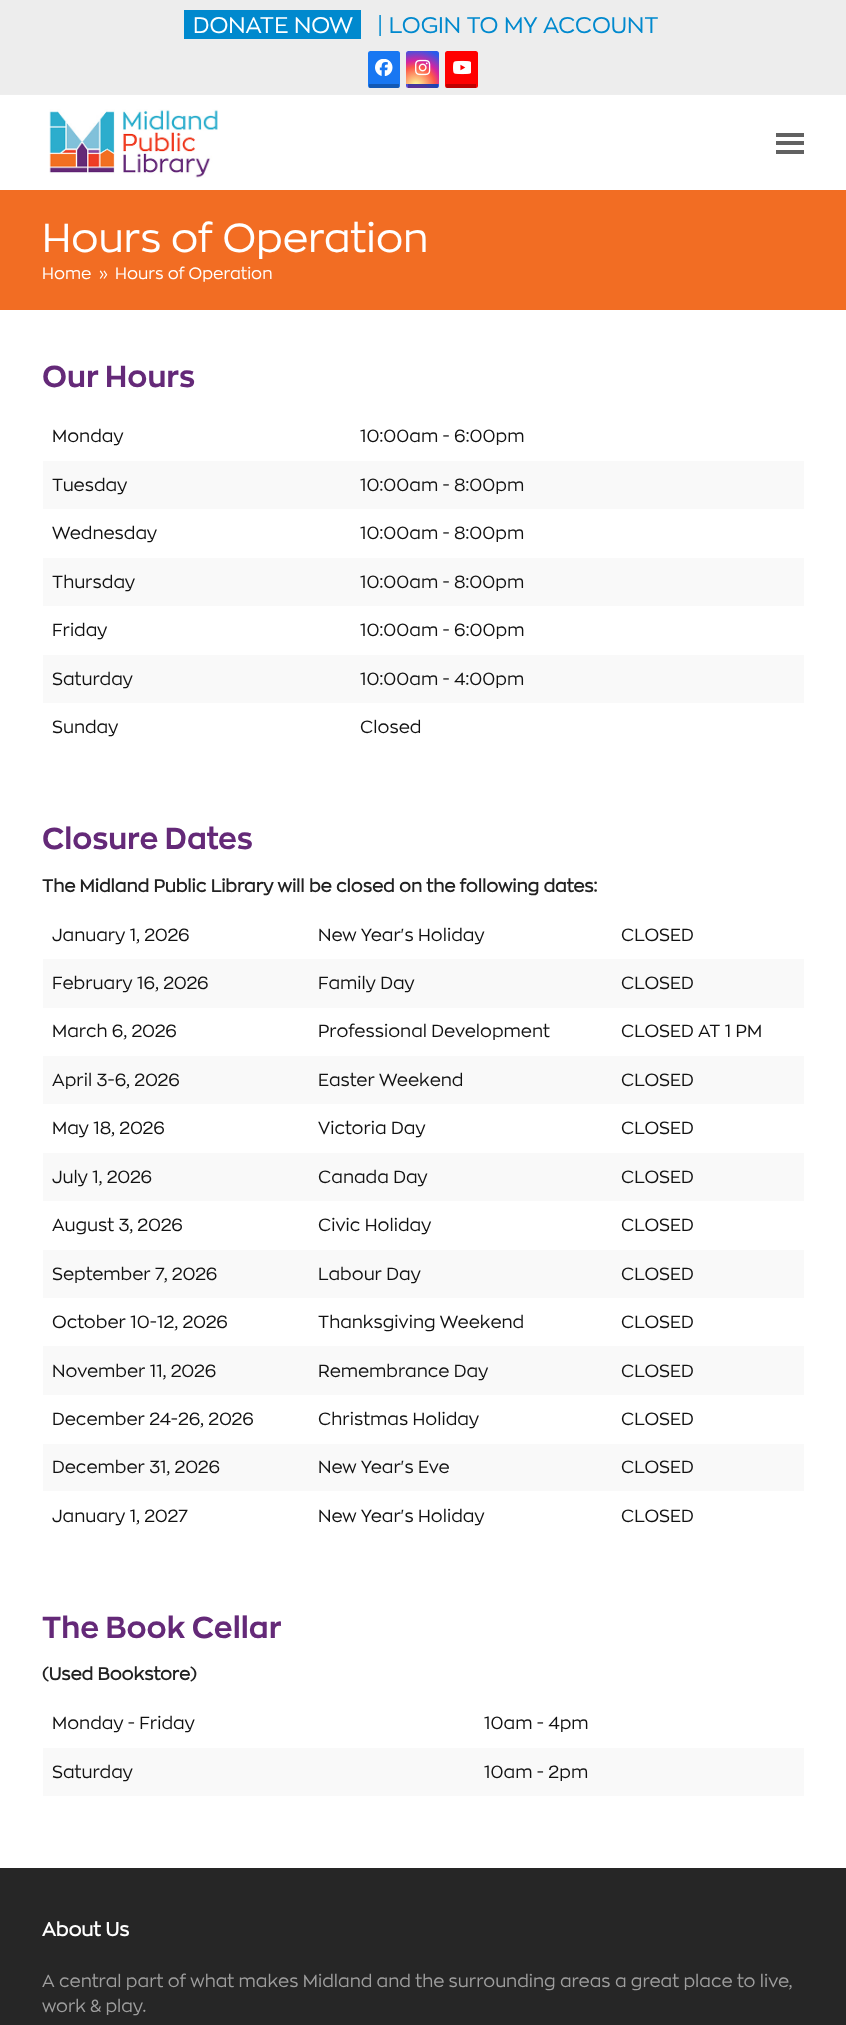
<!DOCTYPE html>
<meta charset="utf-8">
<style>body { margin: 0 } canvas { display: block }</style>
<canvas id="canvas" width="846" height="2025"></canvas>
<script type="module">
  const canvas = document.getElementById("canvas");
  const ctx = canvas.getContext("2d");
  ctx.miterLimit = 4;
  ctx.fontKerning = "normal";
  async function loadImage(src) {
    const img = new Image();
    img.src = src;
    await img.decode();
    return img;
  }
  let gradient;

  ctx.fillStyle = "#ffffff";
  ctx.fillRect(0, 0, 846, 2025);
  ctx.fillStyle = "#ededed";
  ctx.fillRect(0, 0, 846, 94);
  ctx.fillStyle = "#eeeeee";
  ctx.fillRect(0, 94, 846, 1);
  ctx.fillStyle = "#0089ce";
  ctx.fillRect(184, 10, 177, 29);
  ctx.letterSpacing = "0.05px";
  ctx.font = "22.5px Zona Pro";
  ctx.fillStyle = "#ffffff";
  ctx.fillText("DONATE NOW", 193, 33);
  ctx.fillStyle = "#0089ce";
  ctx.fillText("| LOGIN TO MY ACCOUNT", 377, 33);
  ctx.fillStyle = "#1877f2";
  ctx.beginPath();
  ctx.roundRect(368, 51, 32, 37, 2.5);
  ctx.fill();
  ctx.fillStyle = "rgba(0, 0, 0, 0.25)";
  ctx.fillRect(369, 84, 30, 4);
  ctx.drawImage(await loadImage("img1.png"), 375, 59, 18, 17);
  gradient = ctx.createRadialGradient(416, 86, 0, 416, 86, 42);
  gradient.addColorStop(0, "#fdf497");
  gradient.addColorStop(0.05, "#fdf497");
  gradient.addColorStop(0.45, "#fd5949");
  gradient.addColorStop(0.6, "#d6249f");
  gradient.addColorStop(0.9, "#285aeb");
  ctx.fillStyle = gradient;
  ctx.beginPath();
  ctx.roundRect(406, 51, 33, 33, [2.5, 2.5, 0, 0]);
  ctx.fill();
  gradient = ctx.createRadialGradient(416, 119, 0, 416, 119, 42);
  gradient.addColorStop(0, "#fdf497");
  gradient.addColorStop(0.05, "#fdf497");
  gradient.addColorStop(0.45, "#fd5949");
  gradient.addColorStop(0.6, "#d6249f");
  gradient.addColorStop(0.9, "#285aeb");
  ctx.fillStyle = gradient;
  ctx.beginPath();
  ctx.roundRect(406, 84, 33, 4, [0, 0, 2.5, 2.5]);
  ctx.fill();
  ctx.fillStyle = "rgba(0, 0, 0, 0.25)";
  ctx.fillRect(408, 84, 30, 4);
  ctx.drawImage(await loadImage("img2.png"), 415, 59, 16, 17);
  ctx.fillStyle = "#ff0000";
  ctx.beginPath();
  ctx.roundRect(445, 51, 33, 37, 2.5);
  ctx.fill();
  ctx.fillStyle = "rgba(0, 0, 0, 0.25)";
  ctx.fillRect(446, 84, 30, 4);
  ctx.drawImage(await loadImage("img3.png"), 453, 60, 18, 15);
  ctx.drawImage(await loadImage("img4.png"), 49, 109, 169, 69);
  ctx.fillStyle = "#616161";
  ctx.fillRect(776, 141, 28, 4);
  ctx.fillRect(776, 133, 28, 4);
  ctx.fillRect(776, 150, 28, 4);
  ctx.fillStyle = "#f26d23";
  ctx.fillRect(0, 190, 846, 120);
  ctx.font = "40px Zona Pro";
  ctx.fillStyle = "#ffffff";
  ctx.fillText("Hours of Operation", 42, 252);
  ctx.font = "16.25px Zona Pro";
  ctx.fillText("Home", 42, 279);
  ctx.fillText("»", 99, 279);
  ctx.fillText("Hours of Operation", 115, 279);
  ctx.font = "bold 30px 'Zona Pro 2'";
  ctx.fillStyle = "#642978";
  ctx.fillText("Our Hours", 42, 387);
  ctx.font = "17.5px Zona Pro";
  ctx.fillStyle = "#111111";
  ctx.fillText("Monday", 52, 442);
  ctx.fillText("10:00am - 6:00pm", 360, 442);
  ctx.fillStyle = "#f9f9f9";
  ctx.fillRect(43, 461, 761, 48);
  ctx.fillStyle = "#111111";
  ctx.fillText("Tuesday", 52, 491);
  ctx.fillText("10:00am - 8:00pm", 360, 491);
  ctx.fillText("Wednesday", 52, 539);
  ctx.fillText("10:00am - 8:00pm", 360, 539);
  ctx.fillStyle = "#f9f9f9";
  ctx.fillRect(43, 558, 761, 48);
  ctx.fillStyle = "#111111";
  ctx.fillText("Thursday", 52, 588);
  ctx.fillText("10:00am - 8:00pm", 360, 588);
  ctx.fillText("Friday", 52, 636);
  ctx.fillText("10:00am - 6:00pm", 360, 636);
  ctx.fillStyle = "#f9f9f9";
  ctx.fillRect(43, 655, 761, 48);
  ctx.fillStyle = "#111111";
  ctx.fillText("Saturday", 52, 685);
  ctx.fillText("10:00am - 4:00pm", 360, 685);
  ctx.fillText("Sunday", 52, 733);
  ctx.fillText("Closed", 360, 733);
  ctx.font = "bold 30px 'Zona Pro 2'";
  ctx.fillStyle = "#642978";
  ctx.fillText("Closure Dates", 42, 849);
  ctx.font = "bold 17.5px Zona Pro";
  ctx.fillStyle = "#222222";
  ctx.fillText("The Midland Public Library will be closed on the following dates:", 42, 892);
  ctx.font = "17.5px Zona Pro";
  ctx.fillStyle = "#111111";
  ctx.fillText("January 1, 2026", 52, 941);
  ctx.fillText("New Year's Holiday", 318, 941);
  ctx.fillText("CLOSED", 621, 941);
  ctx.fillStyle = "#f9f9f9";
  ctx.fillRect(43, 959, 761, 49);
  ctx.fillStyle = "#111111";
  ctx.fillText("February 16, 2026", 52, 989);
  ctx.fillText("Family Day", 318, 989);
  ctx.fillText("CLOSED", 621, 989);
  ctx.fillText("March 6, 2026", 52, 1037);
  ctx.fillText("Professional Development", 318, 1037);
  ctx.fillText("CLOSED AT 1 PM", 621, 1037);
  ctx.fillStyle = "#f9f9f9";
  ctx.fillRect(43, 1056, 761, 48);
  ctx.fillStyle = "#111111";
  ctx.fillText("April 3-6, 2026", 52, 1086);
  ctx.fillText("Easter Weekend", 318, 1086);
  ctx.fillText("CLOSED", 621, 1086);
  ctx.fillText("May 18, 2026", 52, 1134);
  ctx.fillText("Victoria Day", 318, 1134);
  ctx.fillText("CLOSED", 621, 1134);
  ctx.fillStyle = "#f9f9f9";
  ctx.fillRect(43, 1153, 761, 48);
  ctx.fillStyle = "#111111";
  ctx.fillText("July 1, 2026", 52, 1183);
  ctx.fillText("Canada Day", 318, 1183);
  ctx.fillText("CLOSED", 621, 1183);
  ctx.fillText("August 3, 2026", 52, 1231);
  ctx.fillText("Civic Holiday", 318, 1231);
  ctx.fillText("CLOSED", 621, 1231);
  ctx.fillStyle = "#f9f9f9";
  ctx.fillRect(43, 1250, 761, 48);
  ctx.fillStyle = "#111111";
  ctx.fillText("September 7, 2026", 52, 1280);
  ctx.fillText("Labour Day", 318, 1280);
  ctx.fillText("CLOSED", 621, 1280);
  ctx.fillText("October 10-12, 2026", 52, 1328);
  ctx.fillText("Thanksgiving Weekend", 318, 1328);
  ctx.fillText("CLOSED", 621, 1328);
  ctx.fillStyle = "#f9f9f9";
  ctx.fillRect(43, 1346, 761, 49);
  ctx.fillStyle = "#111111";
  ctx.fillText("November 11, 2026", 52, 1377);
  ctx.fillText("Remembrance Day", 318, 1377);
  ctx.fillText("CLOSED", 621, 1377);
  ctx.fillText("December 24-26, 2026", 52, 1425);
  ctx.fillText("Christmas Holiday", 318, 1425);
  ctx.fillText("CLOSED", 621, 1425);
  ctx.fillStyle = "#f9f9f9";
  ctx.fillRect(43, 1444, 761, 47);
  ctx.fillStyle = "#111111";
  ctx.fillText("December 31, 2026", 52, 1473);
  ctx.fillText("New Year's Eve", 318, 1473);
  ctx.fillText("CLOSED", 621, 1473);
  ctx.fillText("January 1, 2027", 52, 1522);
  ctx.fillText("New Year's Holiday", 318, 1522);
  ctx.fillText("CLOSED", 621, 1522);
  ctx.font = "bold 30px 'Zona Pro 2'";
  ctx.fillStyle = "#642978";
  ctx.fillText("The Book Cellar", 42, 1638);
  ctx.font = "bold 17.5px Zona Pro";
  ctx.fillStyle = "#222222";
  ctx.fillText("(Used Bookstore)", 42, 1680);
  ctx.font = "17.5px Zona Pro";
  ctx.fillStyle = "#111111";
  ctx.fillText("Monday - Friday", 52, 1729);
  ctx.fillText("10am - 4pm", 484, 1729);
  ctx.fillStyle = "#f9f9f9";
  ctx.fillRect(43, 1748, 761, 48);
  ctx.fillStyle = "#111111";
  ctx.fillText("Saturday", 52, 1778);
  ctx.fillText("10am - 2pm", 484, 1778);
  ctx.fillStyle = "#262626";
  ctx.fillRect(0, 1868, 846, 157);
  ctx.font = "bold 19px Zona Pro";
  ctx.fillStyle = "#ffffff";
  ctx.fillText("About Us", 42, 1936);
  ctx.font = "17.5px Zona Pro";
  ctx.fillStyle = "#9e9e9e";
  ctx.fillText("A central part of what makes Midland and the surrounding areas a great place to live,", 42, 1987);
  ctx.fillText("work & play.", 42, 2012);
</script>
